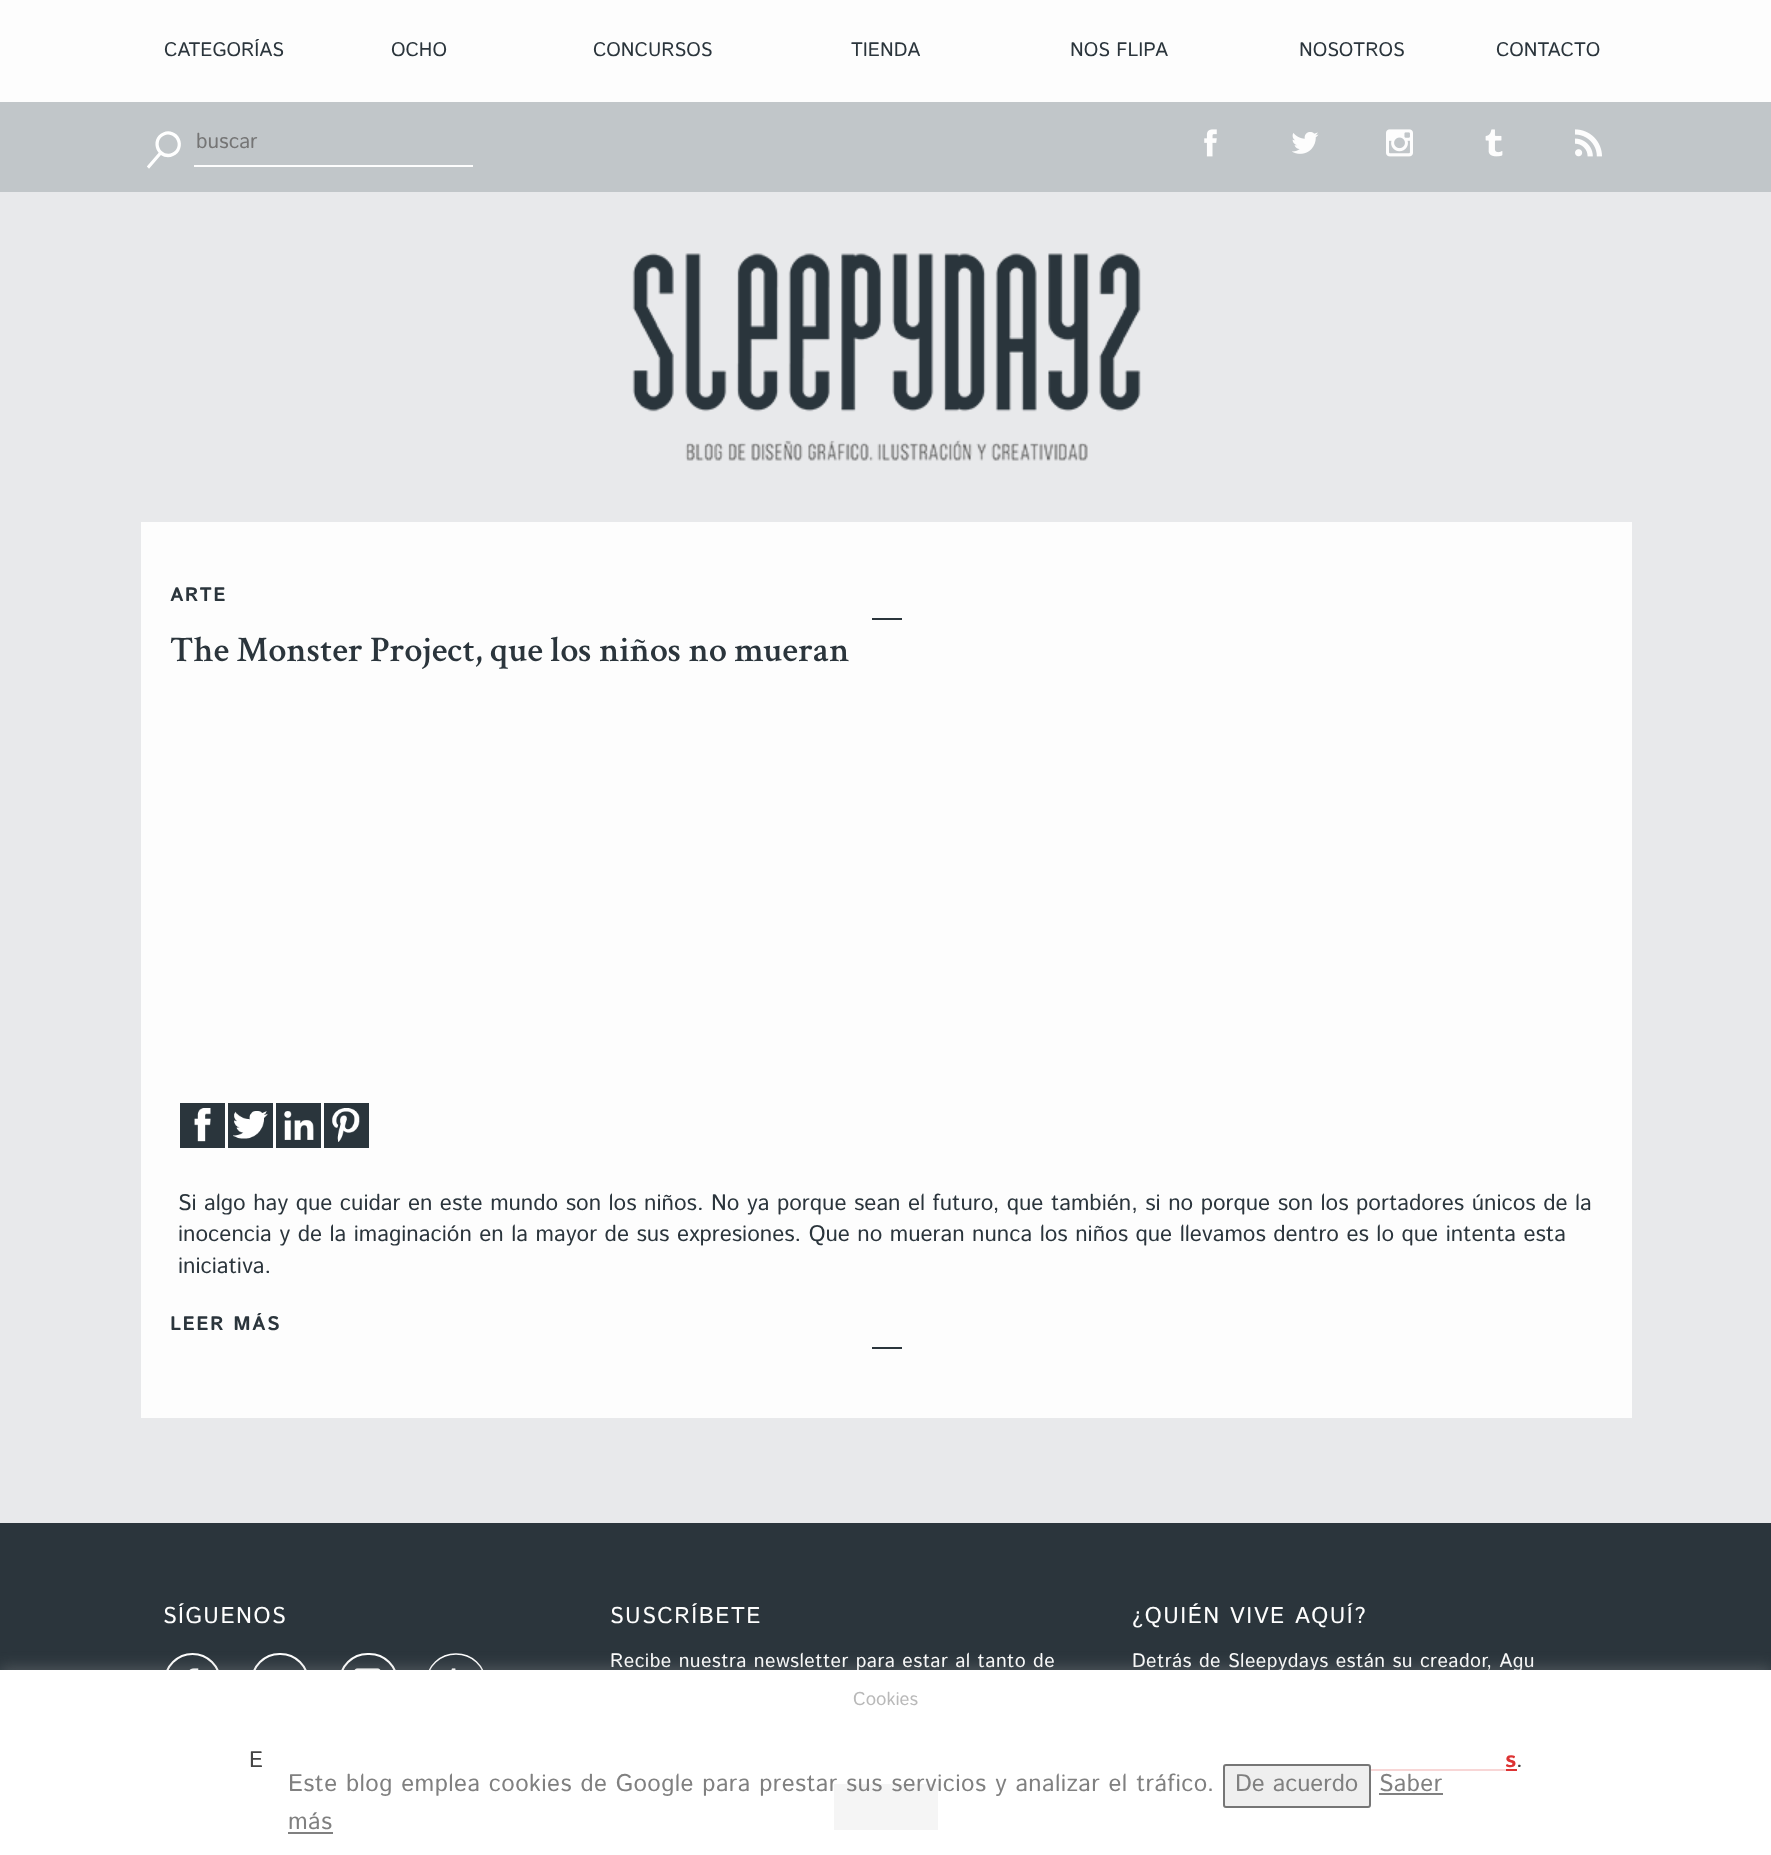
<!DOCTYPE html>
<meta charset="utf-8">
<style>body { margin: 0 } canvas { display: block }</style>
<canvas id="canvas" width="1771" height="1855"></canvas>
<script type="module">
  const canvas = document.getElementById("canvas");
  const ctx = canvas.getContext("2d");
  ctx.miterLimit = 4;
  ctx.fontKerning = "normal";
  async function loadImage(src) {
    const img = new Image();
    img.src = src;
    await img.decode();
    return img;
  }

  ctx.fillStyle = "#e8e9eb";
  ctx.fillRect(0, 0, 1771, 1855);
  ctx.fillStyle = "#fdfdfd";
  ctx.fillRect(0, 0, 1771, 102);
  ctx.font = "19.5px Istok Web";
  ctx.fillStyle = "#2b353c";
  ctx.fillText("CATEGORÍAS", 164, 56);
  ctx.fillText("OCHO", 391, 56);
  ctx.fillText("CONCURSOS", 593, 56);
  ctx.fillText("TIENDA", 851, 56);
  ctx.fillText("NOS FLIPA", 1070, 56);
  ctx.fillText("NOSOTROS", 1299, 56);
  ctx.fillText("CONTACTO", 1496, 56);
  ctx.fillStyle = "#c1c6c9";
  ctx.fillRect(0, 102, 1771, 90);
  ctx.drawImage(await loadImage("img1.png"), 147, 131, 34, 38);
  ctx.fillStyle = "#fdfdfd";
  ctx.fillRect(194, 165, 279, 2);
  ctx.font = "21px Istok Web";
  ctx.fillStyle = "#757575";
  ctx.fillText("buscar", 196, 148);
  ctx.drawImage(await loadImage("img2.png"), 1204, 129, 13, 28);
  ctx.drawImage(await loadImage("img3.png"), 1292, 132, 27, 22);
  ctx.drawImage(await loadImage("img4.png"), 1386, 129, 27, 28);
  ctx.drawImage(await loadImage("img5.png"), 1485, 129, 18, 28);
  ctx.drawImage(await loadImage("img6.png"), 1575, 129, 27, 28);
  ctx.drawImage(await loadImage("img7.png"), 632, 253, 509, 208);
  ctx.fillStyle = "#fdfdfd";
  ctx.fillRect(141, 522, 1491, 896);
  ctx.letterSpacing = "1.5px";
  ctx.font = "bold 19.5px Istok Web";
  ctx.fillStyle = "#2b353c";
  ctx.fillText("ARTE", 170, 601);
  ctx.fillRect(872, 618, 30, 2);
  ctx.letterSpacing = "0px";
  ctx.font = "600 36px Crimson Text";
  ctx.fillText("The Monster Project, que los niños no mueran", 170, 661);
  ctx.fillStyle = "#2a353c";
  ctx.fillRect(180, 1103, 45, 45);
  ctx.drawImage(await loadImage("img8.png"), 194, 1108, 17, 34);
  ctx.fillRect(228, 1103, 45, 45);
  ctx.drawImage(await loadImage("img9.png"), 233, 1111, 35, 28);
  ctx.fillRect(276, 1103, 45, 45);
  ctx.drawImage(await loadImage("img10.png"), 284, 1111, 30, 29);
  ctx.fillRect(324, 1103, 45, 45);
  ctx.drawImage(await loadImage("img11.png"), 332, 1108, 28, 34);
  ctx.font = "22.5px Istok Web";
  ctx.fillStyle = "#2b353c";
  ctx.fillText("Si algo hay que cuidar en este mundo son los niños. No ya porque sean el futuro, que también, si no porque son los portadores únicos de la", 178, 1210);
  ctx.fillText("inocencia y de la imaginación en la mayor de sus expresiones. Que no mueran nunca los niños que llevamos dentro es lo que intenta esta", 178, 1241);
  ctx.fillText("iniciativa.", 178, 1273);
  ctx.letterSpacing = "1.5px";
  ctx.font = "bold 19.5px Istok Web";
  ctx.fillText("LEER MÁS", 170, 1330);
  ctx.fillRect(872, 1347, 30, 2);
  ctx.fillRect(0, 1523, 1771, 147);
  ctx.font = "22.75px Istok Web";
  ctx.fillStyle = "#fdfdfd";
  ctx.fillText("SÍGUENOS", 163, 1623);
  ctx.drawImage(await loadImage("img12.png"), 189, 1668, 10, 2);
  ctx.beginPath();
  ctx.arc(192.5, 1681.5, 27.5, 0, Math.PI * 2);
  ctx.strokeStyle = "#fdfdfd";
  ctx.lineWidth = 2;
  ctx.stroke();
  ctx.beginPath();
  ctx.roundRect(252, 1654, 56, 55, 27.5);
  ctx.stroke();
  ctx.drawImage(await loadImage("img13.png"), 354, 1668, 27, 2);
  ctx.beginPath();
  ctx.roundRect(340, 1654, 57, 55, 27.5);
  ctx.stroke();
  ctx.drawImage(await loadImage("img14.png"), 451, 1668, 5, 2);
  ctx.beginPath();
  ctx.moveTo(456, 1654);
  ctx.bezierCurveTo(472, 1654, 485, 1666, 485, 1681.5);
  ctx.bezierCurveTo(485, 1697, 472, 1709, 456, 1709);
  ctx.bezierCurveTo(440, 1709, 427, 1697, 427, 1681.5);
  ctx.bezierCurveTo(427, 1666, 440, 1654, 456, 1654);
  ctx.closePath();
  ctx.lineWidth = 1.5;
  ctx.stroke();
  ctx.fillText("SUSCRÍBETE", 610, 1623);
  ctx.letterSpacing = "0.45px";
  ctx.font = "19.5px Istok Web";
  ctx.fillText("Recibe nuestra newsletter para estar al tanto de", 610, 1667);
  ctx.letterSpacing = "1.5px";
  ctx.font = "22.75px Istok Web";
  ctx.fillText("¿QUIÉN VIVE AQUÍ?", 1132, 1623);
  ctx.letterSpacing = "0.45px";
  ctx.font = "19.5px Istok Web";
  ctx.fillText("Detrás de Sleepydays están su creador, Agu", 1132, 1667);
  ctx.fillStyle = "rgba(172, 171, 171, 0.3)";
  ctx.filter = "blur(7.5px)";
  ctx.beginPath();
  ctx.rect(0, 1668, 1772, 186);
  ctx.fill();
  ctx.filter = "none";
  ctx.fillStyle = "#ffffff";
  ctx.fillRect(0, 1670, 1771, 185);
  ctx.letterSpacing = "0px";
  ctx.font = "bold 22.5px Istok Web";
  ctx.fillStyle = "#dd3333";
  ctx.fillText("s", 1505, 1767);
  ctx.fillRect(1371, 1769, 146, 2);
  ctx.fillStyle = "#cccccc";
  ctx.fillRect(834, 1784, 104, 46);
  ctx.fillStyle = "rgba(255, 255, 255, 0.8)";
  ctx.fillRect(834, 1765, 672, 65);
  ctx.letterSpacing = "0.45px";
  ctx.font = "24px Istok Web";
  ctx.fillStyle = "#808080";
  ctx.fillText("Este blog emplea cookies de Google para prestar sus servicios y analizar el tráfico.", 288, 1791);
  ctx.fillStyle = "#efefef";
  ctx.beginPath();
  ctx.roundRect(1224, 1765, 146, 42, 2);
  ctx.fill();
  ctx.strokeStyle = "#767676";
  ctx.lineWidth = 2;
  ctx.stroke();
  ctx.letterSpacing = "0px";
  ctx.fillStyle = "#808080";
  ctx.fillText("De acuerdo", 1235, 1791);
  ctx.letterSpacing = "0.45px";
  ctx.fillText("Saber", 1379, 1791);
  ctx.fillRect(1379, 1793, 64, 2);
  ctx.fillText("más", 288, 1829);
  ctx.fillRect(288, 1832, 45, 2);
  ctx.letterSpacing = "0px";
  ctx.font = "18.5px Istok Web";
  ctx.fillStyle = "#b9b9b9";
  ctx.fillText("Cookies", 853, 1705);
  ctx.font = "22.5px Istok Web";
  ctx.fillStyle = "#444444";
  ctx.fillText("E", 249, 1767);
  ctx.fillText(".", 1516, 1767);
</script>
